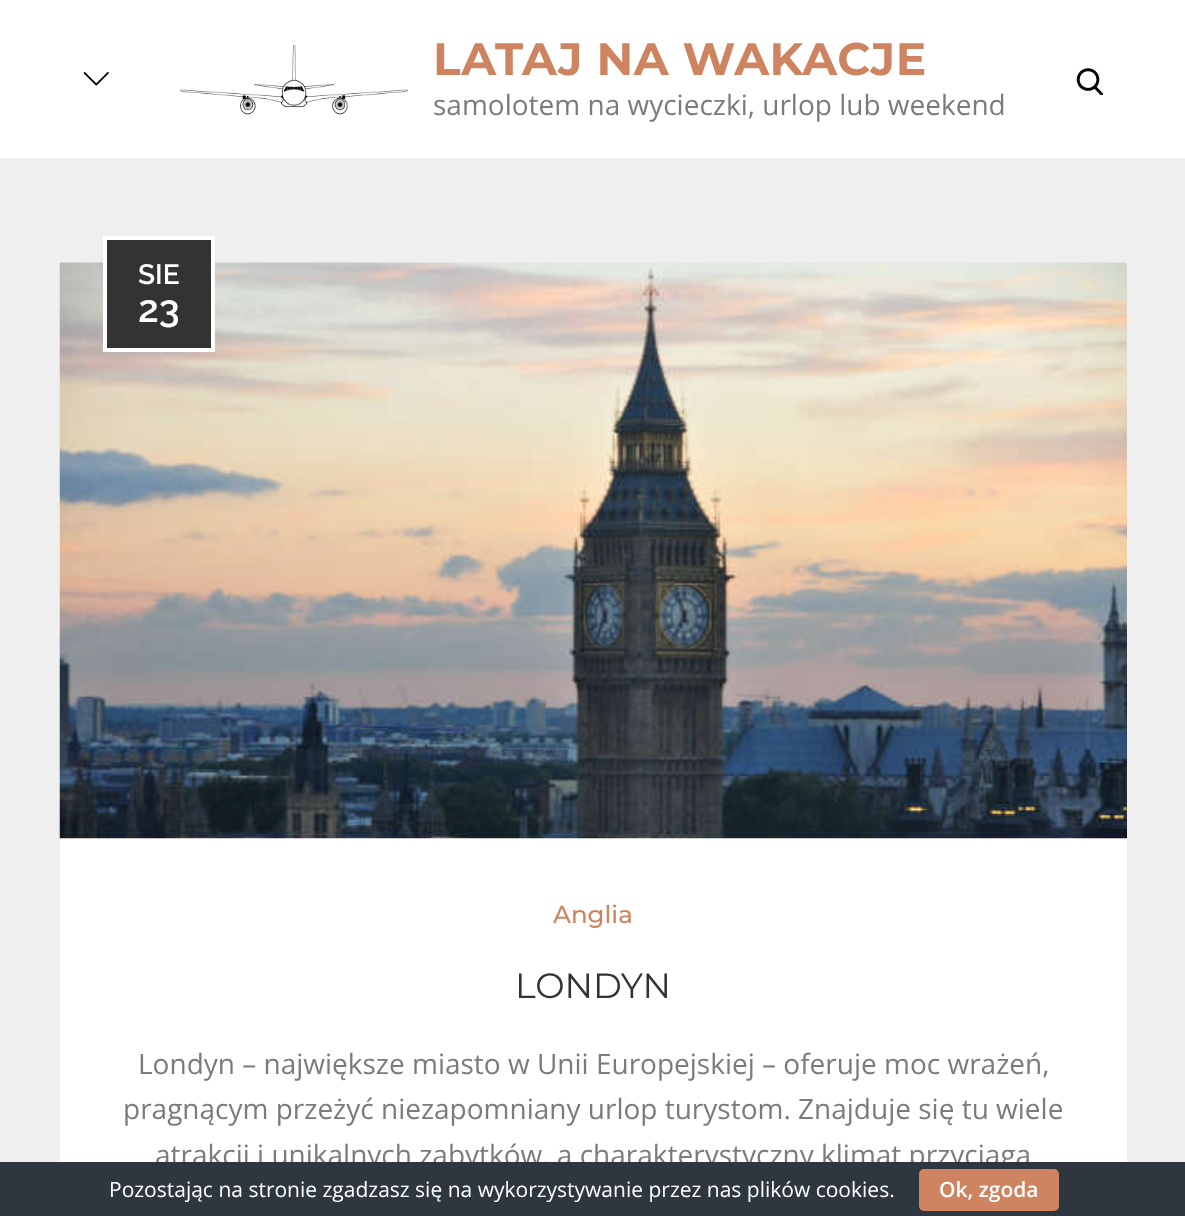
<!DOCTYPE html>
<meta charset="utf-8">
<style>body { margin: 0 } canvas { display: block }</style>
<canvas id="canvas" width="1185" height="1216"></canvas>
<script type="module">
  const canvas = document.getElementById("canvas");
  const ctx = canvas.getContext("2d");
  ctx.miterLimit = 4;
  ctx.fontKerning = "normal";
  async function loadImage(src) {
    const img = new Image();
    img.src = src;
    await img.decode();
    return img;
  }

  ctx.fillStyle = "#efefef";
  ctx.fillRect(0, 0, 1185, 1216);
  ctx.fillStyle = "#ffffff";
  ctx.fillRect(0, 0, 1185, 158);
  ctx.drawImage(await loadImage("img1.png"), 83, 72, 26, 14);
  ctx.drawImage(await loadImage("img2.png"), 180, 44, 228, 71);
  ctx.letterSpacing = "0.5px";
  ctx.font = "bold 45.5px Montserrat";
  ctx.fillStyle = "#ce8460";
  ctx.fillText("LATAJ NA WAKACJE", 433, 75);
  ctx.letterSpacing = "0px";
  ctx.font = "28px Open Sans";
  ctx.fillStyle = "#7b7b7b";
  ctx.fillText("samolotem na wycieczki, urlop lub weekend", 433, 115);
  ctx.drawImage(await loadImage("img3.png"), 1076, 68, 27, 27);
  ctx.fillStyle = "#ffffff";
  ctx.fillRect(60, 838, 1067, 324);
  ctx.drawImage(await loadImage("img4.png"), 59, 262, 1068, 577);
  ctx.fillStyle = "#333333";
  ctx.beginPath();
  ctx.rect(105, 238, 108, 112);
  ctx.fill();
  ctx.strokeStyle = "#ffffff";
  ctx.lineWidth = 4;
  ctx.stroke();
  ctx.font = "600 28px Raleway";
  ctx.fillStyle = "#ffffff";
  ctx.fillText("SIE", 138, 284);
  ctx.font = "600 38px Raleway";
  ctx.fillText("23", 138, 322);
  ctx.font = "500 24.5px Montserrat";
  ctx.fillStyle = "#ce8460";
  ctx.fillText("Anglia", 553, 923);
  ctx.font = "35px Montserrat";
  ctx.fillStyle = "#333333";
  ctx.fillText("LONDYN", 515, 998);
  ctx.font = "28px Open Sans";
  ctx.fillStyle = "#7b7b7b";
  ctx.fillText("Londyn – największe miasto w Unii Europejskiej – oferuje moc wrażeń,", 138, 1074);
  ctx.fillText("pragnącym przeżyć niezapomniany urlop turystom. Znajduje się tu wiele", 123, 1119);
  ctx.fillText("atrakcji i unikalnych zabytków, a charakterystyczny klimat przyciąga", 155, 1165);
  ctx.fillStyle = "#2e363f";
  ctx.fillRect(0, 1162, 1185, 54);
  ctx.font = "21px Open Sans";
  ctx.fillStyle = "#ffffff";
  ctx.fillText("Pozostając na stronie zgadzasz się na wykorzystywanie przez nas plików cookies.", 109, 1197);
  ctx.fillStyle = "#ce8460";
  ctx.beginPath();
  ctx.roundRect(919, 1169, 140, 42, 5);
  ctx.fill();
  ctx.font = "600 21px Open Sans";
  ctx.fillStyle = "#ffffff";
  ctx.fillText("Ok, zgoda", 939, 1197);
</script>
